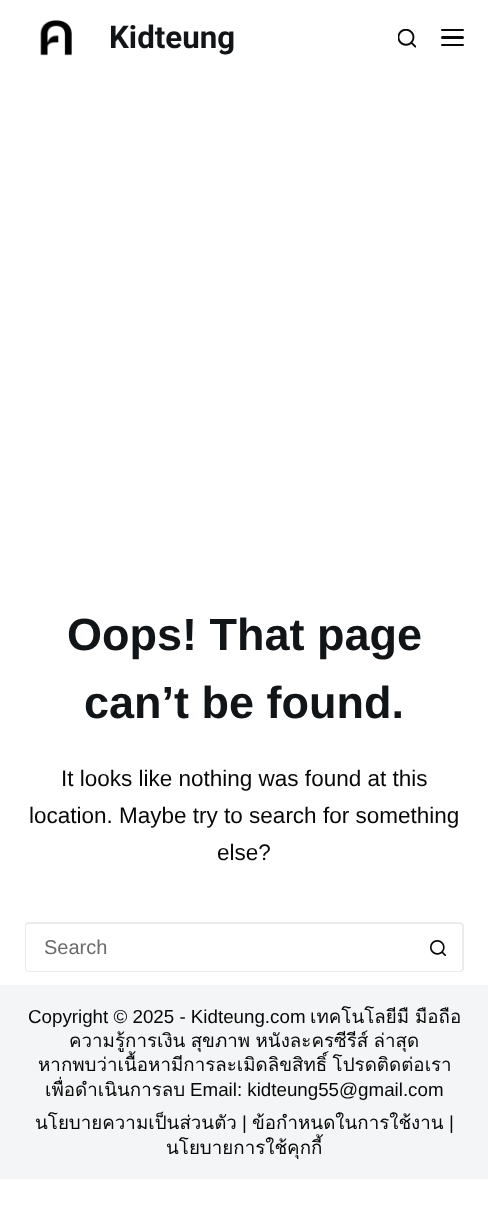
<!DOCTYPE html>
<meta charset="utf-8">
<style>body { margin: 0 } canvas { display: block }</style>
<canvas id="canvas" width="488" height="1214"></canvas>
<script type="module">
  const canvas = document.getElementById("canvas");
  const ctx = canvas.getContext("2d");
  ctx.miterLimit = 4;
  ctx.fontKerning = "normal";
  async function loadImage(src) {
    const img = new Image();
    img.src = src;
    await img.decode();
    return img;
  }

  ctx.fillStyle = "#ffffff";
  ctx.fillRect(0, 0, 488, 1214);
  ctx.drawImage(await loadImage("img1.png"), 40, 19, 32, 37);
  ctx.font = "bold 31.25px Roboto";
  ctx.fillStyle = "#111518";
  ctx.fillText("Kidteung", 109, 48);
  ctx.drawImage(await loadImage("img2.png"), 398, 29, 18, 19);
  ctx.fillStyle = "#070707";
  ctx.beginPath();
  ctx.roundRect(441, 29, 23, 2, 1);
  ctx.fill();
  ctx.beginPath();
  ctx.roundRect(441, 36, 23, 3, 1.5);
  ctx.fill();
  ctx.beginPath();
  ctx.roundRect(441, 44, 23, 2, 1);
  ctx.fill();
  ctx.font = "bold 45px Liberation Sans";
  ctx.fillStyle = "#111518";
  ctx.fillText("Oops! That page", 67, 650);
  ctx.fillText("can’t be found.", 84, 718);
  ctx.font = "22.5px Liberation Sans";
  ctx.fillStyle = "#070707";
  ctx.fillText("It looks like nothing was found at this", 61, 786);
  ctx.fillText("location. Maybe try to search for something", 29, 823);
  ctx.fillText("else?", 217, 860);
  ctx.fillStyle = "#e9ebec";
  ctx.beginPath();
  ctx.moveTo(29, 922);
  ctx.lineTo(414, 922);
  ctx.lineTo(414, 972);
  ctx.lineTo(29, 972);
  ctx.bezierCurveTo(27, 972, 25, 971, 25, 969);
  ctx.lineTo(25, 926);
  ctx.bezierCurveTo(25, 924, 27, 922, 29, 922);
  ctx.closePath();
  ctx.moveTo(29, 924);
  ctx.lineTo(414, 924);
  ctx.lineTo(414, 971);
  ctx.lineTo(29, 971);
  ctx.bezierCurveTo(27, 971, 26, 970, 26, 969);
  ctx.lineTo(26, 926);
  ctx.bezierCurveTo(26, 925, 27, 924, 29, 924);
  ctx.closePath();
  ctx.fill("evenodd");
  ctx.font = "20px Liberation Sans";
  ctx.fillStyle = "#6a6a6a";
  ctx.fillText("Search", 44, 954);
  ctx.fillStyle = "#e9ebec";
  ctx.beginPath();
  ctx.moveTo(414, 922);
  ctx.lineTo(460, 922);
  ctx.bezierCurveTo(462, 922, 464, 924, 464, 926);
  ctx.lineTo(464, 969);
  ctx.bezierCurveTo(464, 971, 462, 972, 460, 972);
  ctx.lineTo(414, 972);
  ctx.closePath();
  ctx.moveTo(414, 924);
  ctx.lineTo(460, 924);
  ctx.bezierCurveTo(461, 924, 462, 925, 462, 926);
  ctx.lineTo(462, 969);
  ctx.bezierCurveTo(462, 970, 461, 971, 460, 971);
  ctx.lineTo(414, 971);
  ctx.closePath();
  ctx.fill("evenodd");
  ctx.drawImage(await loadImage("img3.png"), 430, 940, 16, 16);
  ctx.fillStyle = "#f4f5f6";
  ctx.fillRect(0, 985, 488, 194);
  ctx.font = "18.75px Liberation Sans";
  ctx.fillStyle = "#070707";
  ctx.fillText("Copyright © 2025 - Kidteung.com", 28, 1023);
  ctx.font = "18.75px Loma";
  ctx.fillText("เทคโนโลยีมื", 310, 1023);
  ctx.fillText("มือถือ", 415, 1023);
  ctx.wordSpacing = "-1px";
  ctx.fillText("ความรู้การเงิน สุขภาพ หนังละครซีรีส์ ล่าสุด", 69, 1047);
  ctx.fillText("หากพบว่าเนื้อหามีการละเมิดลิขสิทธิ์ โปรดติดต่อเรา", 38, 1071);
  ctx.wordSpacing = "0px";
  ctx.fillText("เพื่อดำเนินการลบ", 45, 1096);
  ctx.font = "18.75px Liberation Sans";
  ctx.fillText("Email: kidteung55@gmail.com", 190, 1096);
  ctx.font = "18.75px Loma";
  ctx.fillText("นโยบายความเป็นส่วนตัว", 35, 1129);
  ctx.font = "18.75px Liberation Sans";
  ctx.fillText("|", 242, 1129);
  ctx.font = "18.75px Loma";
  ctx.fillText("ข้อกำหนดในการใช้งาน", 252, 1129);
  ctx.font = "18.75px Liberation Sans";
  ctx.fillText("|", 449, 1129);
  ctx.font = "18.75px Loma";
  ctx.fillText("นโยบายการใช้คุกกี้", 166, 1154);
</script>
